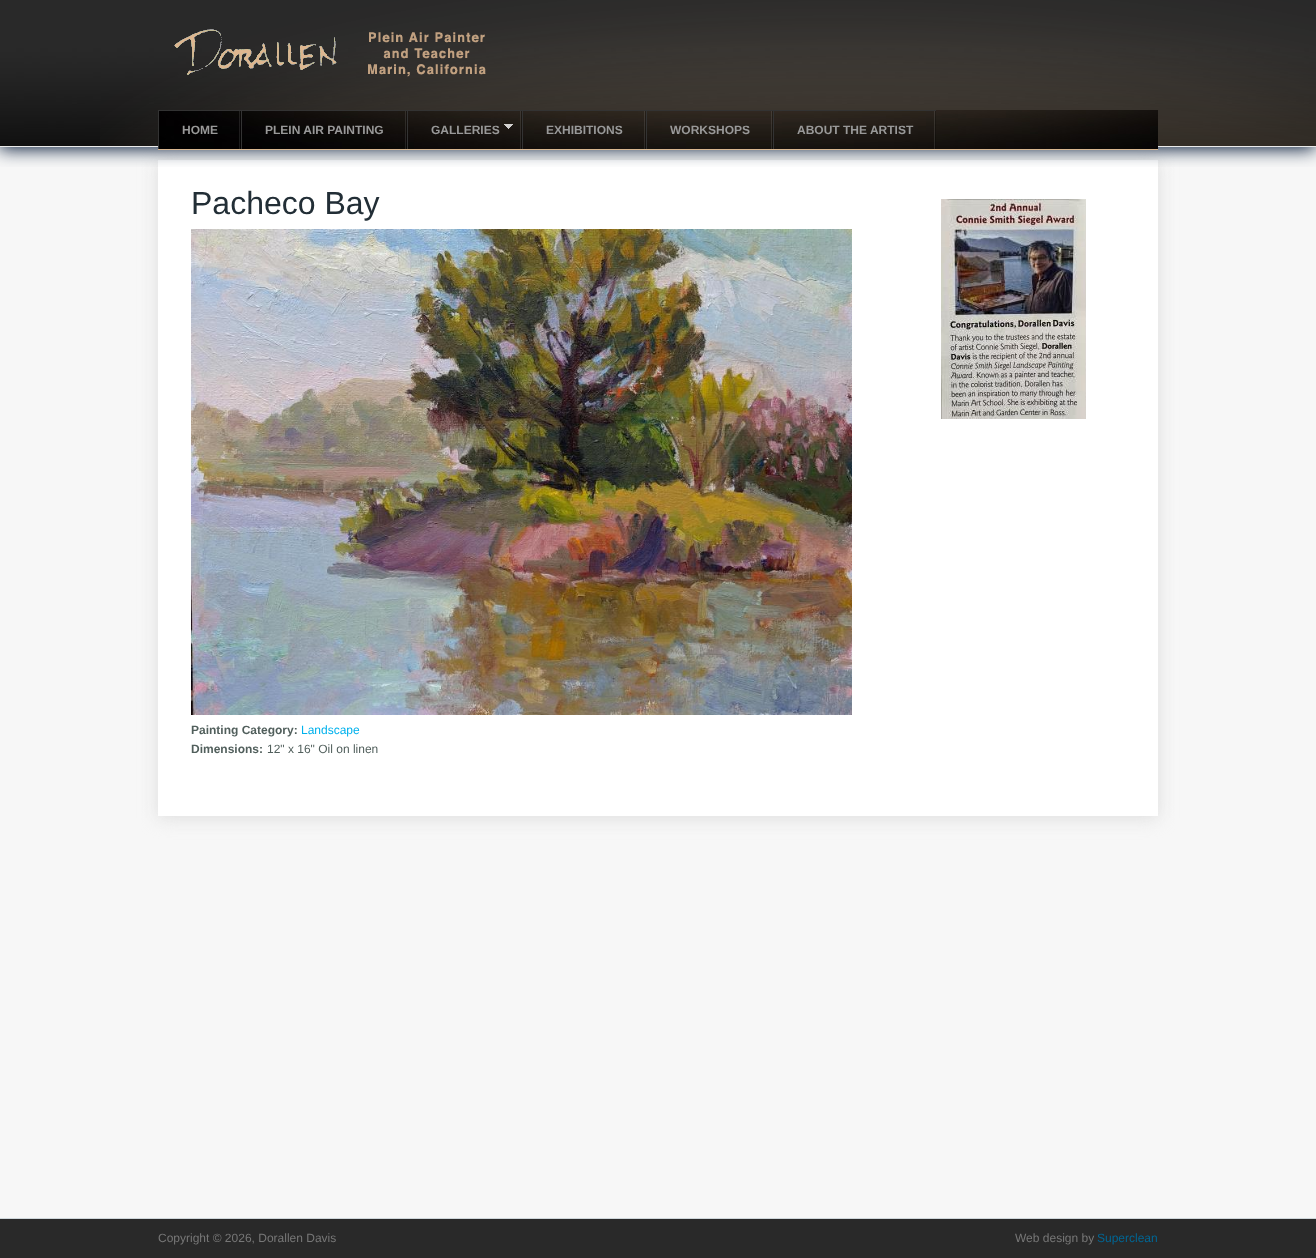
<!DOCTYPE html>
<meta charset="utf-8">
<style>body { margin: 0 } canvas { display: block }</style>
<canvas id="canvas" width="1316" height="1258"></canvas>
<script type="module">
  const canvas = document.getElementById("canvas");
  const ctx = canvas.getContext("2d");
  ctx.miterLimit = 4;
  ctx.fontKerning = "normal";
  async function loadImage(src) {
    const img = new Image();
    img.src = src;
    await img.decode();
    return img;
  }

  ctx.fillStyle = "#f7f7f7";
  ctx.fillRect(0, 0, 1316, 1258);
  ctx.drawImage(await loadImage("img1.png"), 0, 0, 1316, 146);
  ctx.fillStyle = "#dddddd";
  ctx.filter = "blur(9px)";
  ctx.beginPath();
  ctx.rect(158, 162, 1000, 656);
  ctx.fill();
  ctx.filter = "none";
  ctx.fillStyle = "#ffffff";
  ctx.fillRect(158, 160, 1000, 656);
  ctx.save();
  ctx.beginPath();
  ctx.rect(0, 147, 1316, 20);
  ctx.clip();
  ctx.fillStyle = "#021736";
  ctx.filter = "blur(9px)";
  ctx.beginPath();
  ctx.rect(-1, 2, 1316, 147);
  ctx.fill();
  ctx.filter = "none";
  ctx.restore();
  ctx.drawImage(await loadImage("img2.png"), 100, 0, 1216, 146);
  ctx.fillStyle = "#ebebeb";
  ctx.fillRect(0, 146, 1316, 1);
  ctx.drawImage(await loadImage("img3.png"), 174, 29, 312, 48);
  ctx.drawImage(await loadImage("img4.png"), 159, 110, 999, 39);
  ctx.fillStyle = "#d9b790";
  ctx.fillRect(158, 149, 1000, 1);
  ctx.fillStyle = "rgba(255, 255, 255, 0.1)";
  ctx.fillRect(239, 110, 1, 39);
  ctx.fillStyle = "#333333";
  ctx.fillRect(158, 110, 778, 1);
  ctx.fillRect(158, 110, 1, 39);
  ctx.font = "bold 12px Liberation Sans";
  ctx.fillStyle = "#999999";
  ctx.fillText("HOME", 182, 134);
  ctx.drawImage(await loadImage("img5.png"), 405, 111, 2, 38);
  ctx.fillStyle = "#333333";
  ctx.fillRect(241, 110, 1, 39);
  ctx.fillStyle = "#999999";
  ctx.fillText("PLEIN AIR PAINTING", 265, 134);
  ctx.drawImage(await loadImage("img6.png"), 520, 111, 2, 38);
  ctx.fillStyle = "#333333";
  ctx.fillRect(407, 110, 1, 39);
  ctx.fillStyle = "#999999";
  ctx.fillText("GALLERIES", 431, 134);
  ctx.drawImage(await loadImage("img7.png"), 504, 124, 9, 5);
  ctx.drawImage(await loadImage("img8.png"), 644, 111, 2, 38);
  ctx.fillStyle = "#333333";
  ctx.fillRect(522, 110, 1, 39);
  ctx.fillStyle = "#999999";
  ctx.fillText("EXHIBITIONS", 546, 134);
  ctx.drawImage(await loadImage("img9.png"), 771, 111, 2, 38);
  ctx.fillStyle = "#333333";
  ctx.fillRect(646, 110, 1, 39);
  ctx.fillStyle = "#999999";
  ctx.fillText("WORKSHOPS", 670, 134);
  ctx.drawImage(await loadImage("img10.png"), 934, 111, 2, 38);
  ctx.fillStyle = "#333333";
  ctx.fillRect(773, 110, 1, 39);
  ctx.fillStyle = "#999999";
  ctx.fillText("ABOUT THE ARTIST", 797, 134);
  ctx.font = "32px Liberation Sans";
  ctx.fillStyle = "#222e36";
  ctx.fillText("Pacheco Bay", 191, 214);
  ctx.drawImage(await loadImage("img11.png"), 191, 229, 661, 486);
  ctx.font = "bold 12px Liberation Sans";
  ctx.fillStyle = "#515f5c";
  ctx.fillText("Painting Category:", 191, 734);
  ctx.font = "12px Liberation Sans";
  ctx.fillStyle = "#00b1ec";
  ctx.fillText("Landscape", 301, 734);
  ctx.font = "bold 12px Liberation Sans";
  ctx.fillStyle = "#515f5c";
  ctx.fillText("Dimensions:", 191, 753);
  ctx.font = "12px Liberation Sans";
  ctx.fillText("12\" x 16\" Oil on linen", 267, 753);
  ctx.drawImage(await loadImage("img12.png"), 941, 199, 145, 220);
  ctx.fillStyle = "#cfd7db";
  ctx.fillRect(0, 1218, 1316, 1);
  ctx.fillStyle = "#292929";
  ctx.fillRect(0, 1219, 1316, 39);
  ctx.fillStyle = "#777777";
  ctx.fillText("Copyright © 2026, Dorallen Davis", 158, 1242);
  ctx.fillText("Web design by", 1015, 1242);
  ctx.fillStyle = "#006694";
  ctx.fillText("Superclean", 1097, 1242);
</script>
